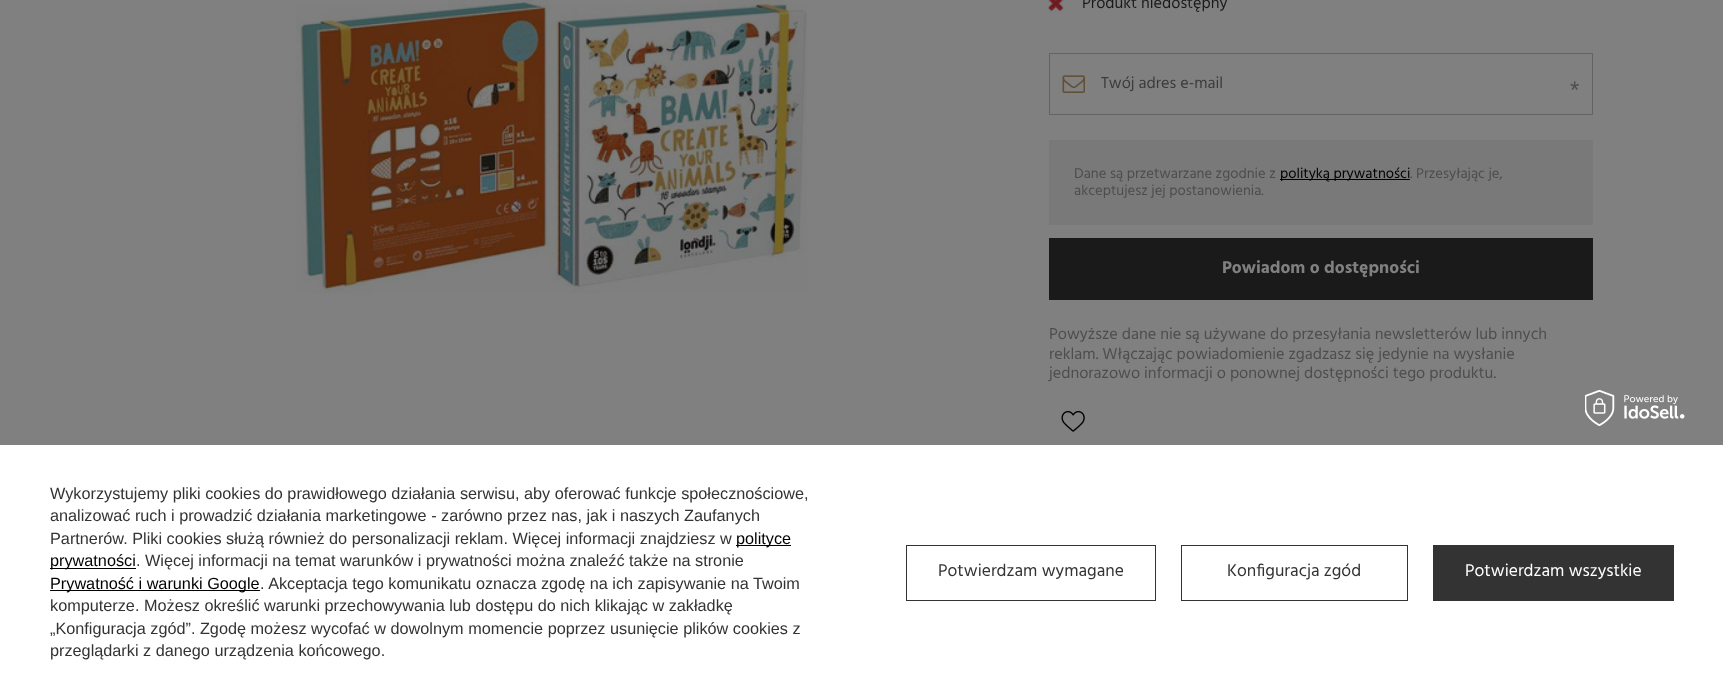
<!DOCTYPE html>
<meta charset="utf-8">
<style>body { margin: 0 } canvas { display: block }</style>
<canvas id="canvas" width="1723" height="699"></canvas>
<script type="module">
  const canvas = document.getElementById("canvas");
  const ctx = canvas.getContext("2d");
  ctx.miterLimit = 4;
  ctx.fontKerning = "normal";
  async function loadImage(src) {
    const img = new Image();
    img.src = src;
    await img.decode();
    return img;
  }

  ctx.fillStyle = "#808080";
  ctx.fillRect(0, 0, 1723, 699);
  ctx.drawImage(await loadImage("img1.png"), 296, 0, 511, 294);
  ctx.drawImage(await loadImage("img2.png"), 1048, 0, 16, 12);
  ctx.font = "16.25px Hind";
  ctx.fillStyle = "#1a1a1a";
  ctx.fillText("Produkt niedostępny", 1082, 8);
  ctx.strokeStyle = "#626464";
  ctx.strokeRect(1049.5, 53.5, 543, 61);
  ctx.drawImage(await loadImage("img3.png"), 1062, 75, 23, 18);
  ctx.fillStyle = "#3b3b3b";
  ctx.fillText("Twój adres e-mail", 1101, 88);
  ctx.font = "24px Liberation Sans";
  ctx.fillStyle = "#4d4d4d";
  ctx.fillText("*", 1570, 98);
  ctx.fillStyle = "#797979";
  ctx.fillRect(1049, 140, 544, 85);
  ctx.font = "14.6px Hind";
  ctx.fillStyle = "#4d4d4d";
  ctx.fillText("Dane są przetwarzane zgodnie z", 1074, 178);
  ctx.fillStyle = "#000000";
  ctx.fillRect(1280, 179, 130, 1);
  ctx.fillText("polityką prywatności", 1280, 178);
  ctx.fillStyle = "#4d4d4d";
  ctx.fillText(". Przesyłając je,", 1410, 178);
  ctx.fillText("akceptujesz jej postanowienia.", 1074, 195);
  ctx.fillStyle = "#1a1a1a";
  ctx.fillRect(1049, 238, 544, 62);
  ctx.font = "bold 17.5px Hind";
  ctx.fillStyle = "#808080";
  ctx.fillText("Powiadom o dostępności", 1222, 273);
  ctx.font = "16.25px Hind";
  ctx.fillStyle = "#4d4d4d";
  ctx.fillText("Powyższe dane nie są używane do przesyłania newsletterów lub innych", 1049, 339);
  ctx.fillText("reklam. Włączając powiadomienie zgadzasz się jedynie na wysłanie", 1049, 359);
  ctx.fillText("jednorazowo informacji o ponownej dostępności tego produktu.", 1049, 378);
  ctx.drawImage(await loadImage("img4.png"), 1061, 410, 24, 22);
  ctx.fillStyle = "#ffffff";
  ctx.fillRect(0, 445, 1723, 254);
  ctx.drawImage(await loadImage("img5.png"), 1585, 390, 100, 36);
  ctx.font = "16.25px Liberation Sans";
  ctx.fillStyle = "#333333";
  ctx.fillText("Wykorzystujemy pliki cookies do prawidłowego działania serwisu, aby oferować funkcje społecznościowe,", 50, 499);
  ctx.fillText("analizować ruch i prowadzić działania marketingowe - zarówno przez nas, jak i naszych Zaufanych", 50, 521);
  ctx.fillText("Partnerów. Pliki cookies służą również do personalizacji reklam. Więcej informacji znajdziesz w", 50, 544);
  ctx.fillStyle = "#000000";
  ctx.fillRect(736, 545, 55, 1);
  ctx.fillText("polityce", 736, 544);
  ctx.fillRect(50, 568, 86, 1);
  ctx.fillText("prywatności", 50, 566);
  ctx.fillStyle = "#333333";
  ctx.fillText(". Więcej informacji na temat warunków i prywatności można znaleźć także na stronie", 136, 566);
  ctx.fillStyle = "#000000";
  ctx.fillRect(50, 590, 210, 1);
  ctx.fillText("Prywatność i warunki Google", 50, 589);
  ctx.fillStyle = "#333333";
  ctx.fillText(". Akceptacja tego komunikatu oznacza zgodę na ich zapisywanie na Twoim", 260, 589);
  ctx.fillText("komputerze. Możesz określić warunki przechowywania lub dostępu do nich klikając w zakładkę", 50, 611);
  ctx.fillText("„Konfiguracja zgód”. Zgodę możesz wycofać w dowolnym momencie poprzez usunięcie plików cookies z", 50, 634);
  ctx.fillText("przeglądarki z danego urządzenia końcowego.", 50, 656);
  ctx.strokeStyle = "#333333";
  ctx.strokeRect(906.5, 545.5, 249, 55);
  ctx.font = "17.5px Hind";
  ctx.fillText("Potwierdzam wymagane", 938, 576);
  ctx.strokeRect(1181.5, 545.5, 226, 55);
  ctx.fillText("Konfiguracja zgód", 1227, 576);
  ctx.fillRect(1433, 545, 241, 56);
  ctx.fillStyle = "#ffffff";
  ctx.fillText("Potwierdzam wszystkie", 1465, 576);
</script>
